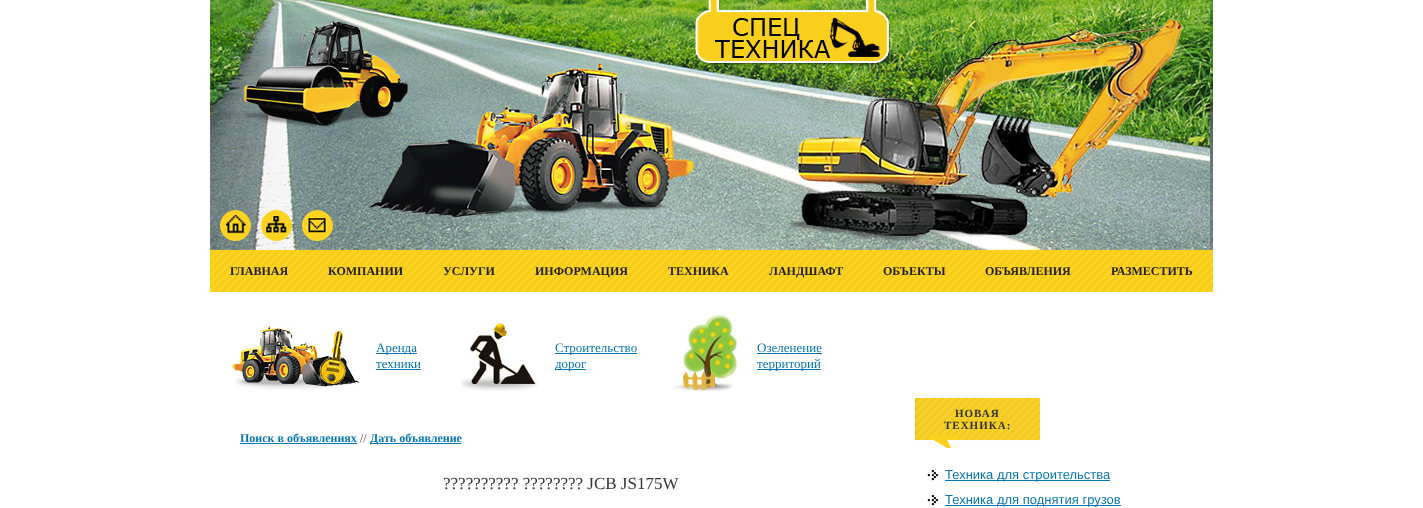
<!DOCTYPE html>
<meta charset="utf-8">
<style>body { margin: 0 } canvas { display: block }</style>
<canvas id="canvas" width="1423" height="508"></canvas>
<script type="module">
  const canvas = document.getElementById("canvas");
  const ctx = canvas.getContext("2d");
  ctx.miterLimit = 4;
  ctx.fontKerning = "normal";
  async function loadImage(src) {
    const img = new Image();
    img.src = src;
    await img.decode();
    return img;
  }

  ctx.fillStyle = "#ffffff";
  ctx.fillRect(0, 0, 1423, 508);
  ctx.drawImage(await loadImage("img1.png"), 210, 0, 1003, 250);
  ctx.drawImage(await loadImage("img2.png"), 695, 0, 195, 66);
  ctx.drawImage(await loadImage("img3.png"), 220, 210, 31, 31);
  ctx.drawImage(await loadImage("img4.png"), 261, 210, 31, 31);
  ctx.drawImage(await loadImage("img5.png"), 302, 210, 31, 31);
  ctx.drawImage(await loadImage("img6.png"), 210, 250, 1003, 42);
  ctx.font = "bold 12px Liberation Serif";
  ctx.fillStyle = "#222222";
  ctx.fillText("ГЛАВНАЯ", 230, 275);
  ctx.fillText("КОМПАНИИ", 328, 275);
  ctx.fillText("УСЛУГИ", 443, 275);
  ctx.fillText("ИНФОРМАЦИЯ", 535, 275);
  ctx.fillText("ТЕХНИКА", 668, 275);
  ctx.fillText("ЛАНДШАФТ", 769, 275);
  ctx.fillText("ОБЪЕКТЫ", 883, 275);
  ctx.fillText("ОБЪЯВЛЕНИЯ", 985, 275);
  ctx.fillText("РАЗМЕСТИТЬ", 1111, 275);
  ctx.drawImage(await loadImage("img7.png"), 231, 326, 129, 64);
  ctx.fillStyle = "#0775b0";
  ctx.fillRect(376, 353, 41, 1);
  ctx.font = "13px Liberation Serif";
  ctx.fillText("Аренда", 376, 352);
  ctx.fillText("техники", 376, 368);
  ctx.fillRect(376, 369, 45, 1);
  ctx.drawImage(await loadImage("img8.png"), 460, 318, 79, 73);
  ctx.fillRect(555, 353, 82, 1);
  ctx.fillText("Строительство", 555, 352);
  ctx.fillRect(555, 369, 31, 1);
  ctx.fillText("дорог", 555, 368);
  ctx.drawImage(await loadImage("img9.png"), 673, 312, 69, 79);
  ctx.fillText("Озеленение", 757, 352);
  ctx.fillRect(757, 353, 65, 1);
  ctx.fillRect(757, 369, 64, 1);
  ctx.fillText("территорий", 757, 368);
  ctx.font = "bold 12px Liberation Serif";
  ctx.fillText("Поиск в объявлениях", 240, 442);
  ctx.fillRect(240, 443, 117, 1);
  ctx.font = "12px Liberation Serif";
  ctx.fillStyle = "#333333";
  ctx.fillText("//", 360, 442);
  ctx.fillStyle = "#0775b0";
  ctx.fillRect(370, 443, 91, 1);
  ctx.font = "bold 12px Liberation Serif";
  ctx.fillText("Дать объявление", 370, 442);
  ctx.font = "17px Liberation Serif";
  ctx.fillStyle = "#333333";
  ctx.fillText("?????????? ???????? JCB JS175W", 443, 489);
  ctx.drawImage(await loadImage("img10.png"), 915, 398, 125, 50);
  ctx.letterSpacing = "1px";
  ctx.font = "bold 11px Liberation Serif";
  ctx.fillText("НОВАЯ", 955, 417);
  ctx.fillText("ТЕХНИКА:", 944, 429);
  ctx.drawImage(await loadImage("img11.png"), 927, 468, 11, 13);
  ctx.fillStyle = "#0775b0";
  ctx.fillRect(945, 480, 165, 1);
  ctx.letterSpacing = "0px";
  ctx.font = "13px Liberation Sans";
  ctx.fillText("Техника для строительства", 945, 479);
  ctx.drawImage(await loadImage("img11.png"), 927, 493, 11, 13);
  ctx.fillRect(945, 505, 176, 1);
  ctx.fillText("Техника для поднятия грузов", 945, 504);
</script>
